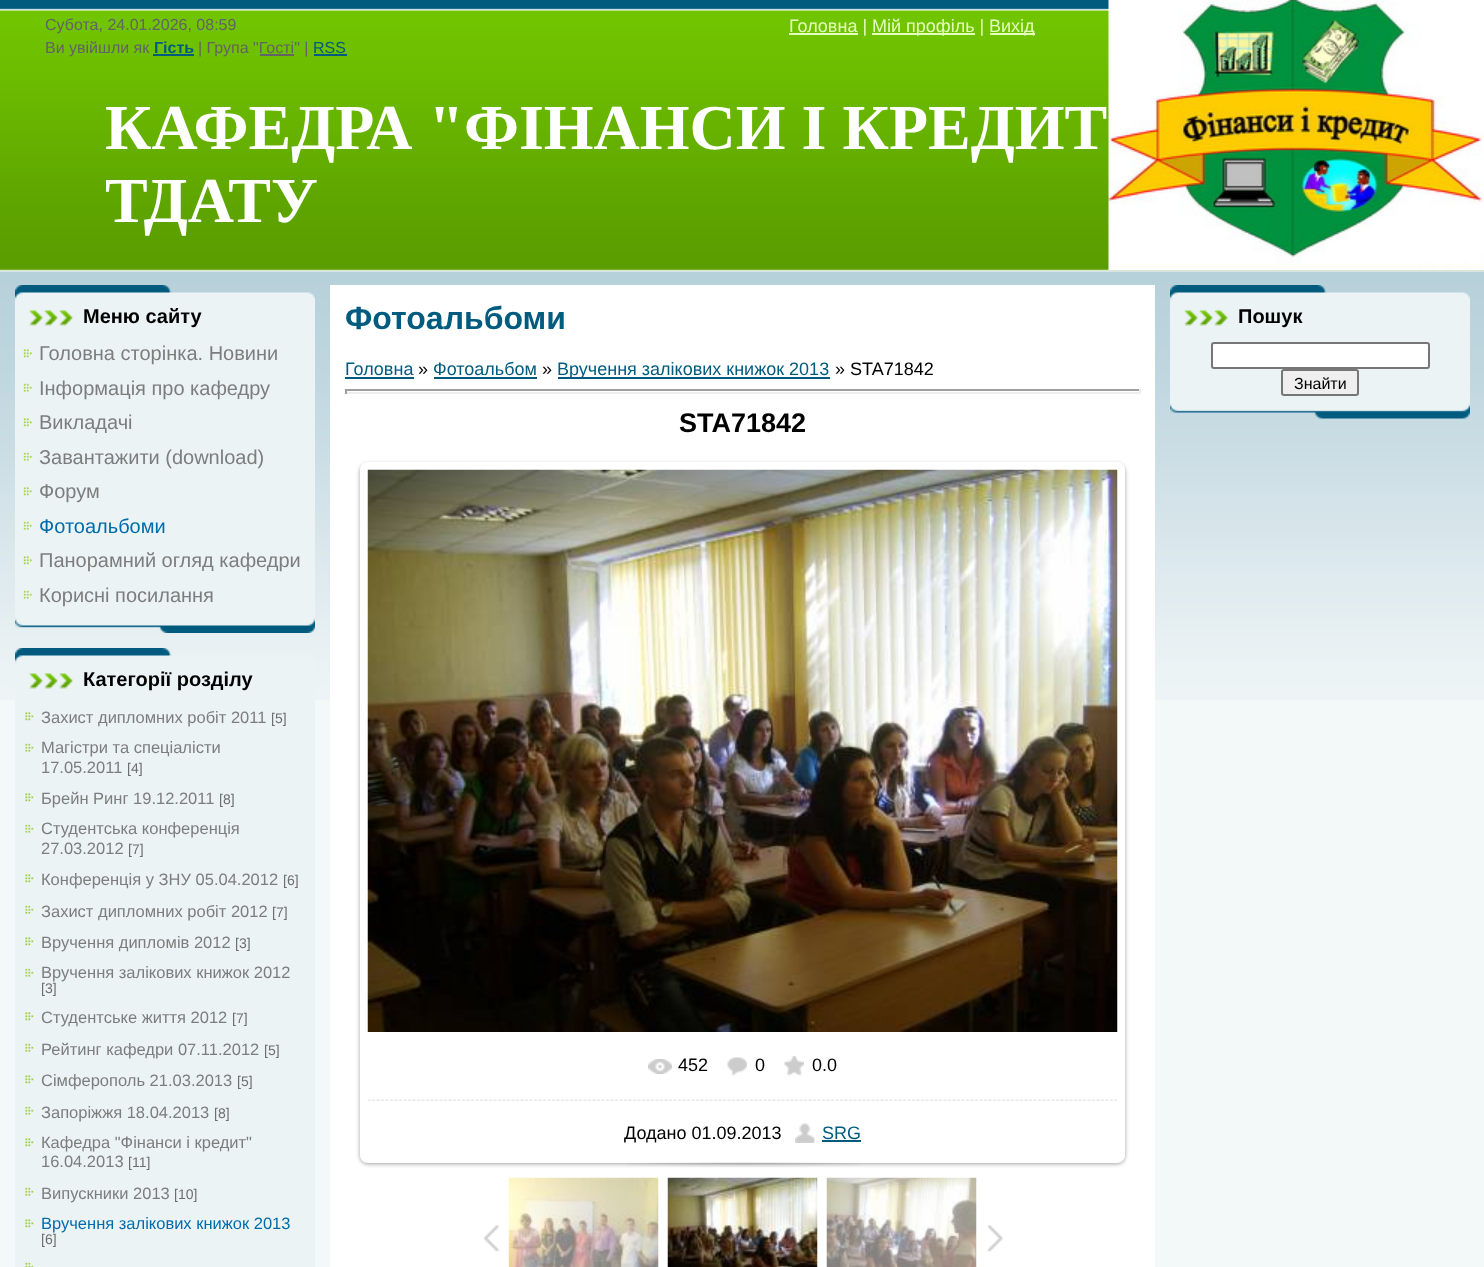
<!DOCTYPE html>
<meta charset="utf-8">
<style>body { margin: 0 } canvas { display: block }</style>
<canvas id="canvas" width="1484" height="1267"></canvas>
<script type="module">
  const canvas = document.getElementById("canvas");
  const ctx = canvas.getContext("2d");
  ctx.miterLimit = 4;
  ctx.fontKerning = "normal";
  async function loadImage(src) {
    const img = new Image();
    img.src = src;
    await img.decode();
    return img;
  }

  ctx.fillStyle = "#f3f8f9";
  ctx.fillRect(0, 0, 1484, 1267);
  ctx.drawImage(await loadImage("img1.png"), 0, 0, 1484, 700);
  ctx.font = "16px Liberation Sans";
  ctx.fillStyle = "#636363";
  ctx.fillText("Субота, 24.01.2026, 08:59", 45, 30);
  ctx.fillStyle = "#e4ffbd";
  ctx.fillRect(789, 33, 69, 2);
  ctx.font = "18px Liberation Sans";
  ctx.fillText("Головна |", 789, 32);
  ctx.fillRect(872, 33, 103, 2);
  ctx.fillText("Мій профіль |", 872, 32);
  ctx.fillRect(990, 33, 45, 2);
  ctx.fillText("Вихід", 989, 32);
  ctx.drawImage(await loadImage("img2.png"), 1108, 0, 376, 270);
  ctx.font = "16px Liberation Sans";
  ctx.fillStyle = "#636363";
  ctx.fillText("Ви увійшли як", 45, 53);
  ctx.font = "bold 16px Liberation Sans";
  ctx.fillStyle = "#005b7f";
  ctx.fillText("Гість", 154, 53);
  ctx.fillRect(153, 54, 41, 2);
  ctx.font = "16px Liberation Sans";
  ctx.fillStyle = "#636363";
  ctx.fillText("| Група \"Гості\" |", 198, 53);
  ctx.fillStyle = "#005b7f";
  ctx.fillText("RSS", 313, 53);
  ctx.fillRect(314, 54, 33, 2);
  ctx.fillStyle = "#636363";
  ctx.fillRect(260, 54, 34, 2);
  ctx.font = "bold 64px Liberation Serif";
  ctx.fillStyle = "#ffffff";
  ctx.fillText("КАФЕДРА \"ФІНАНСИ І КРЕДИТ", 105, 149);
  ctx.fillText("ТДАТУ", 105, 222);
  ctx.drawImage(await loadImage("img3.png"), 15, 285, 300, 57);
  ctx.font = "bold 20px Liberation Sans";
  ctx.fillStyle = "#000000";
  ctx.fillText("Меню сайту", 83, 323);
  ctx.drawImage(await loadImage("img4.png"), 15, 342, 300, 291);
  ctx.drawImage(await loadImage("img5.png"), 23, 349, 9, 9);
  ctx.font = "20px Liberation Sans";
  ctx.fillStyle = "#7d7d7d";
  ctx.fillText("Головна сторінка. Новини", 39, 360);
  ctx.drawImage(await loadImage("img6.png"), 23, 383, 9, 9);
  ctx.fillText("Інформація про кафедру", 39, 395);
  ctx.drawImage(await loadImage("img5.png"), 23, 418, 9, 9);
  ctx.fillText("Викладачі", 39, 429);
  ctx.drawImage(await loadImage("img6.png"), 23, 452, 9, 9);
  ctx.fillText("Завантажити (download)", 39, 464);
  ctx.drawImage(await loadImage("img5.png"), 23, 487, 9, 9);
  ctx.fillText("Форум", 39, 498);
  ctx.drawImage(await loadImage("img6.png"), 23, 521, 9, 9);
  ctx.fillStyle = "#016cac";
  ctx.fillText("Фотоальбоми", 39, 533);
  ctx.drawImage(await loadImage("img5.png"), 23, 556, 9, 9);
  ctx.fillStyle = "#7d7d7d";
  ctx.fillText("Панорамний огляд кафедри", 39, 567);
  ctx.drawImage(await loadImage("img6.png"), 23, 590, 9, 9);
  ctx.fillText("Корисні посилання", 39, 602);
  ctx.drawImage(await loadImage("img7.png"), 15, 648, 300, 57);
  ctx.font = "bold 20px Liberation Sans";
  ctx.fillStyle = "#000000";
  ctx.fillText("Категорії розділу", 83, 686);
  ctx.fillStyle = "#ecf3f5";
  ctx.fillRect(15, 705, 300, 562);
  ctx.drawImage(await loadImage("img8.png"), 25, 712, 9, 9);
  ctx.font = "16.5px Liberation Sans";
  ctx.fillStyle = "#7d7d7d";
  ctx.fillText("Захист дипломних робіт 2011", 41, 723);
  ctx.font = "14px Liberation Sans";
  ctx.fillStyle = "#6e6e6e";
  ctx.fillText("[5]", 271, 723);
  ctx.drawImage(await loadImage("img9.png"), 25, 743, 9, 9);
  ctx.font = "16.5px Liberation Sans";
  ctx.fillStyle = "#7d7d7d";
  ctx.fillText("Магістри та спеціалісти", 41, 753);
  ctx.fillText("17.05.2011", 41, 773);
  ctx.font = "14px Liberation Sans";
  ctx.fillStyle = "#6e6e6e";
  ctx.fillText("[4]", 127, 773);
  ctx.drawImage(await loadImage("img8.png"), 25, 793, 9, 9);
  ctx.font = "16.5px Liberation Sans";
  ctx.fillStyle = "#7d7d7d";
  ctx.fillText("Брейн Ринг 19.12.2011", 41, 804);
  ctx.font = "14px Liberation Sans";
  ctx.fillStyle = "#6e6e6e";
  ctx.fillText("[8]", 219, 804);
  ctx.drawImage(await loadImage("img9.png"), 25, 824, 9, 9);
  ctx.font = "16.5px Liberation Sans";
  ctx.fillStyle = "#7d7d7d";
  ctx.fillText("Студентська конференція", 41, 834);
  ctx.fillText("27.03.2012", 41, 854);
  ctx.font = "14px Liberation Sans";
  ctx.fillStyle = "#6e6e6e";
  ctx.fillText("[7]", 128, 854);
  ctx.drawImage(await loadImage("img8.png"), 25, 874, 9, 9);
  ctx.font = "16.5px Liberation Sans";
  ctx.fillStyle = "#7d7d7d";
  ctx.fillText("Конференція у ЗНУ 05.04.2012", 41, 885);
  ctx.font = "14px Liberation Sans";
  ctx.fillStyle = "#6e6e6e";
  ctx.fillText("[6]", 283, 885);
  ctx.drawImage(await loadImage("img9.png"), 25, 905, 9, 9);
  ctx.font = "16.5px Liberation Sans";
  ctx.fillStyle = "#7d7d7d";
  ctx.fillText("Захист дипломних робіт 2012", 41, 917);
  ctx.font = "14px Liberation Sans";
  ctx.fillStyle = "#6e6e6e";
  ctx.fillText("[7]", 272, 917);
  ctx.drawImage(await loadImage("img8.png"), 25, 937, 9, 9);
  ctx.font = "16.5px Liberation Sans";
  ctx.fillStyle = "#7d7d7d";
  ctx.fillText("Вручення дипломів 2012", 41, 948);
  ctx.font = "14px Liberation Sans";
  ctx.fillStyle = "#6e6e6e";
  ctx.fillText("[3]", 235, 948);
  ctx.drawImage(await loadImage("img9.png"), 25, 968, 9, 9);
  ctx.font = "16.5px Liberation Sans";
  ctx.fillStyle = "#7d7d7d";
  ctx.fillText("Вручення залікових книжок 2012", 41, 978);
  ctx.font = "14px Liberation Sans";
  ctx.fillStyle = "#6e6e6e";
  ctx.fillText("[3]", 41, 993);
  ctx.drawImage(await loadImage("img8.png"), 25, 1012, 9, 9);
  ctx.font = "16.5px Liberation Sans";
  ctx.fillStyle = "#7d7d7d";
  ctx.fillText("Студентське життя 2012", 41, 1023);
  ctx.font = "14px Liberation Sans";
  ctx.fillStyle = "#6e6e6e";
  ctx.fillText("[7]", 232, 1023);
  ctx.drawImage(await loadImage("img9.png"), 25, 1043, 9, 9);
  ctx.font = "16.5px Liberation Sans";
  ctx.fillStyle = "#7d7d7d";
  ctx.fillText("Рейтинг кафедри 07.11.2012", 41, 1055);
  ctx.font = "14px Liberation Sans";
  ctx.fillStyle = "#6e6e6e";
  ctx.fillText("[5]", 264, 1055);
  ctx.drawImage(await loadImage("img8.png"), 25, 1075, 9, 9);
  ctx.font = "16.5px Liberation Sans";
  ctx.fillStyle = "#7d7d7d";
  ctx.fillText("Сімферополь 21.03.2013", 41, 1086);
  ctx.font = "14px Liberation Sans";
  ctx.fillStyle = "#6e6e6e";
  ctx.fillText("[5]", 237, 1086);
  ctx.drawImage(await loadImage("img9.png"), 25, 1106, 9, 9);
  ctx.font = "16.5px Liberation Sans";
  ctx.fillStyle = "#7d7d7d";
  ctx.fillText("Запоріжжя 18.04.2013", 41, 1118);
  ctx.font = "14px Liberation Sans";
  ctx.fillStyle = "#6e6e6e";
  ctx.fillText("[8]", 214, 1118);
  ctx.drawImage(await loadImage("img8.png"), 25, 1138, 9, 9);
  ctx.font = "16.5px Liberation Sans";
  ctx.fillStyle = "#7d7d7d";
  ctx.fillText("Кафедра \"Фінанси і кредит\"", 41, 1148);
  ctx.fillText("16.04.2013", 41, 1167);
  ctx.font = "14px Liberation Sans";
  ctx.fillStyle = "#6e6e6e";
  ctx.fillText("[11]", 128, 1167);
  ctx.drawImage(await loadImage("img9.png"), 25, 1187, 9, 9);
  ctx.font = "16.5px Liberation Sans";
  ctx.fillStyle = "#7d7d7d";
  ctx.fillText("Випускники 2013", 41, 1199);
  ctx.font = "14px Liberation Sans";
  ctx.fillStyle = "#6e6e6e";
  ctx.fillText("[10]", 174, 1199);
  ctx.drawImage(await loadImage("img8.png"), 25, 1219, 9, 9);
  ctx.font = "16.5px Liberation Sans";
  ctx.fillStyle = "#016cac";
  ctx.fillText("Вручення залікових книжок 2013", 41, 1229);
  ctx.font = "14px Liberation Sans";
  ctx.fillStyle = "#6e6e6e";
  ctx.fillText("[6]", 41, 1244);
  ctx.drawImage(await loadImage("img10.png"), 25, 1262, 9, 5);
  ctx.fillStyle = "#ffffff";
  ctx.fillRect(330, 285, 825, 982);
  ctx.font = "bold 32px Liberation Sans";
  ctx.fillStyle = "#005b7f";
  ctx.fillText("Фотоальбоми", 345, 329);
  ctx.font = "18px Liberation Sans";
  ctx.fillText("Головна", 345, 375);
  ctx.fillRect(345, 377, 69, 2);
  ctx.fillStyle = "#000000";
  ctx.fillText("»", 418, 375);
  ctx.fillStyle = "#005b7f";
  ctx.fillText("Фотоальбом", 433, 375);
  ctx.fillRect(434, 377, 103, 2);
  ctx.fillStyle = "#000000";
  ctx.fillText("»", 542, 375);
  ctx.fillStyle = "#005b7f";
  ctx.fillRect(558, 377, 272, 2);
  ctx.fillText("Вручення залікових книжок 2013", 557, 375);
  ctx.fillStyle = "#000000";
  ctx.fillText("» STA71842", 835, 375);
  ctx.fillStyle = "#9f9f9f";
  ctx.fillRect(345, 389, 795, 2);
  ctx.fillStyle = "#eeeeee";
  ctx.fillRect(1139, 389, 2, 5);
  ctx.fillRect(345, 392, 795, 2);
  ctx.fillStyle = "#9f9f9f";
  ctx.fillRect(345, 389, 2, 5);
  ctx.font = "bold 27px Liberation Sans";
  ctx.fillStyle = "#000000";
  ctx.fillText("STA71842", 679, 432);
  ctx.save();
  ctx.beginPath();
  ctx.moveTo(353, 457);
  ctx.lineTo(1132, 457);
  ctx.lineTo(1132, 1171);
  ctx.lineTo(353, 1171);
  ctx.closePath();
  ctx.moveTo(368, 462);
  ctx.lineTo(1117, 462);
  ctx.bezierCurveTo(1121.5, 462, 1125, 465.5, 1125, 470);
  ctx.lineTo(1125, 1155);
  ctx.bezierCurveTo(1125, 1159.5, 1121.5, 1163, 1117, 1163);
  ctx.lineTo(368, 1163);
  ctx.bezierCurveTo(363.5, 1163, 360, 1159.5, 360, 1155);
  ctx.lineTo(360, 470);
  ctx.bezierCurveTo(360, 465.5, 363.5, 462, 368, 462);
  ctx.closePath();
  ctx.clip("evenodd");
  ctx.fillStyle = "rgba(0, 0, 0, 0.37)";
  ctx.filter = "blur(2px)";
  ctx.beginPath();
  ctx.roundRect(360, 464, 765, 700, 8);
  ctx.fill();
  ctx.filter = "none";
  ctx.restore();
  ctx.drawImage(await loadImage("img11.png"), 367, 469, 751, 563);
  ctx.drawImage(await loadImage("img12.png"), 648, 1059, 24, 15);
  ctx.font = "18px Liberation Sans";
  ctx.fillText("452", 678, 1071);
  ctx.drawImage(await loadImage("img13.png"), 727, 1057, 20, 19);
  ctx.fillText("0", 755, 1071);
  ctx.drawImage(await loadImage("img14.png"), 784, 1056, 20, 20);
  ctx.fillText("0.0", 812, 1071);
  ctx.drawImage(await loadImage("img15.png"), 367, 1099, 751, 2);
  ctx.fillText("Додано 01.09.2013", 624, 1139);
  ctx.drawImage(await loadImage("img16.png"), 795, 1123, 20, 20);
  ctx.fillStyle = "#005b7f";
  ctx.fillText("SRG", 822, 1139);
  ctx.fillRect(822, 1140, 39, 2);
  ctx.drawImage(await loadImage("img17.png"), 627, 1162, 233, 5);
  ctx.drawImage(await loadImage("img18.png"), 483, 1225, 17, 27);
  ctx.drawImage(await loadImage("img19.png"), 508, 1177, 151, 90);
  ctx.drawImage(await loadImage("img20.png"), 667, 1177, 151, 90);
  ctx.drawImage(await loadImage("img21.png"), 826, 1177, 151, 90);
  ctx.drawImage(await loadImage("img22.png"), 987, 1225, 17, 27);
  ctx.drawImage(await loadImage("img23.png"), 1170, 285, 300, 57);
  ctx.font = "bold 20px Liberation Sans";
  ctx.fillStyle = "#000000";
  ctx.fillText("Пошук", 1238, 323);
  ctx.drawImage(await loadImage("img24.png"), 1170, 342, 300, 77);
  ctx.fillStyle = "#ffffff";
  ctx.beginPath();
  ctx.roundRect(1212, 343, 217, 25, 2);
  ctx.fill();
  ctx.strokeStyle = "#767676";
  ctx.lineWidth = 2;
  ctx.stroke();
  ctx.fillStyle = "#efefef";
  ctx.beginPath();
  ctx.roundRect(1282, 370, 76, 25, 2);
  ctx.fill();
  ctx.stroke();
  ctx.font = "16px Liberation Sans";
  ctx.fillStyle = "#000000";
  ctx.fillText("Знайти", 1294, 389);
</script>
